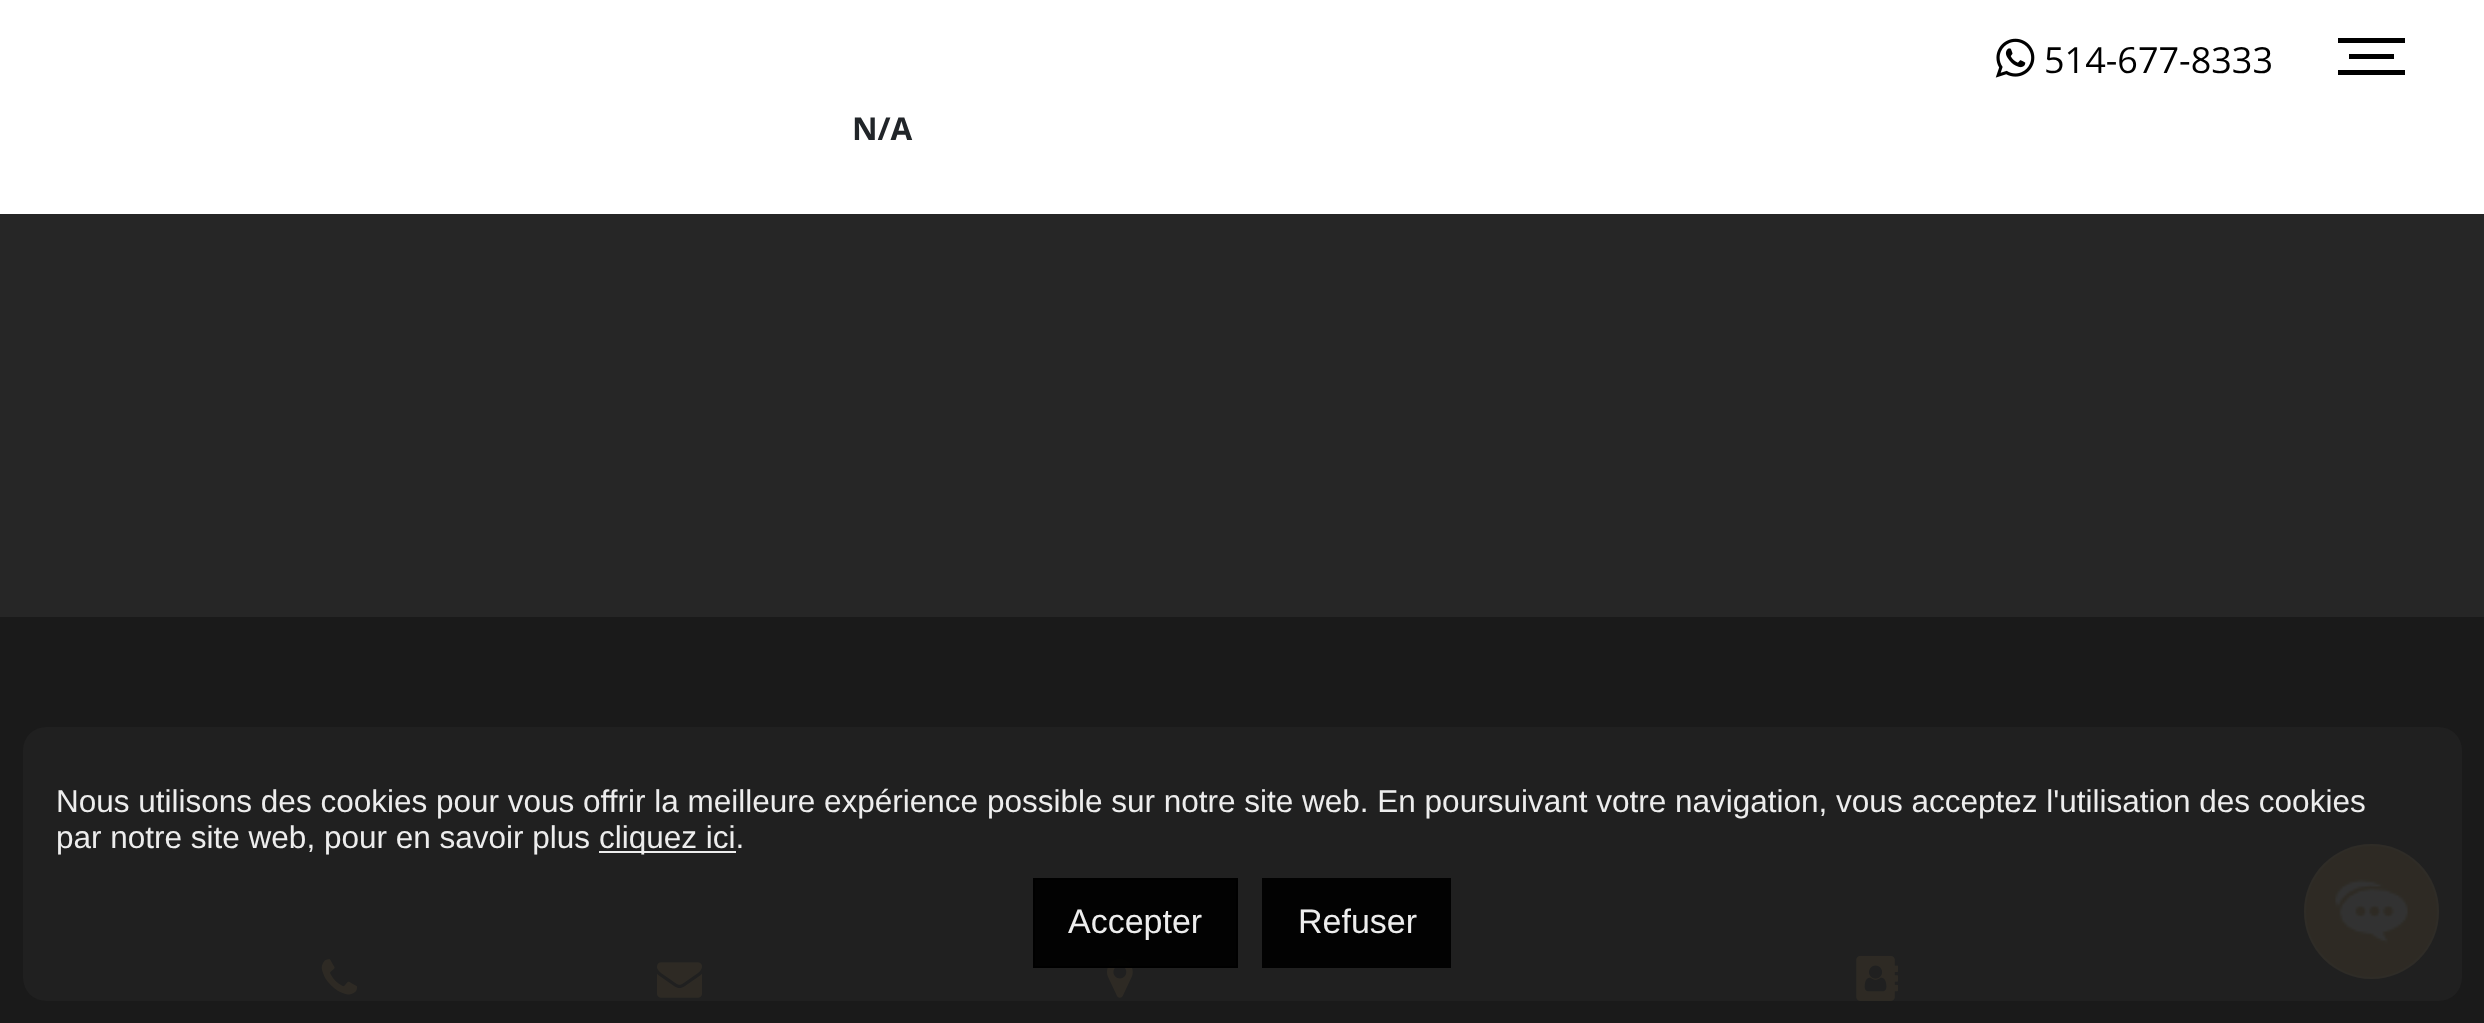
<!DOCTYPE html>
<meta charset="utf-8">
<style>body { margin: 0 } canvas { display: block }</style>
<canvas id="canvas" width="2484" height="1023"></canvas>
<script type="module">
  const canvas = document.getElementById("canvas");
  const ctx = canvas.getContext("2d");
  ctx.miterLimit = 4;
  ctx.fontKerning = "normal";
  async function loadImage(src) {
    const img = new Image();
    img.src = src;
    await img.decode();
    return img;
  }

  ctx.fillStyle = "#ffffff";
  ctx.fillRect(0, 0, 2484, 1023);
  ctx.drawImage(await loadImage("img1.png"), 1995, 38, 40, 40);
  ctx.font = "36px Open Sans";
  ctx.fillStyle = "#000000";
  ctx.fillText("514-677-8333", 2044, 73);
  ctx.fillRect(2338, 38, 67, 5);
  ctx.fillRect(2349, 54, 45, 5);
  ctx.fillRect(2338, 70, 67, 5);
  ctx.font = "bold 31.5px Open Sans";
  ctx.fillStyle = "#212529";
  ctx.fillText("N/A", 852, 140);
  ctx.fillStyle = "#262626";
  ctx.fillRect(0, 214, 2484, 403);
  ctx.fillStyle = "#1a1a1a";
  ctx.fillRect(0, 617, 2484, 406);
  ctx.drawImage(await loadImage("img2.png"), 321, 959, 37, 36);
  ctx.drawImage(await loadImage("img3.png"), 657, 962, 45, 36);
  ctx.drawImage(await loadImage("img4.png"), 1107, 959, 26, 39);
  ctx.drawImage(await loadImage("img5.png"), 1856, 955, 43, 46);
  ctx.fillStyle = "#373737";
  ctx.filter = "blur(12.5px)";
  ctx.beginPath();
  ctx.roundRect(2318, 857, 112, 113, 56);
  ctx.fill();
  ctx.filter = "none";
  ctx.fillStyle = "#c79e51";
  ctx.beginPath();
  ctx.arc(2371.5, 911.5, 67.5, 0, Math.PI * 2);
  ctx.fill();
  ctx.beginPath();
  ctx.arc(2371.5, 911.5, 66.5, 0, Math.PI * 2);
  ctx.strokeStyle = "rgba(255, 255, 255, 0.19)";
  ctx.lineWidth = 2;
  ctx.stroke();
  ctx.drawImage(await loadImage("img6.png"), 2335, 879, 73, 65);
  ctx.fillStyle = "rgba(33, 33, 33, 0.92)";
  ctx.beginPath();
  ctx.roundRect(23, 727, 2439, 274, 23);
  ctx.fill();
  ctx.font = "31.5px Liberation Sans";
  ctx.fillStyle = "#ededed";
  ctx.fillText("Nous utilisons des cookies pour vous offrir la meilleure expérience possible sur notre site web. En poursuivant votre navigation, vous acceptez l'utilisation des cookies", 56, 812);
  ctx.fillText("par notre site web, pour en savoir plus", 56, 848);
  ctx.fillRect(599, 851, 137, 2);
  ctx.fillText("cliquez ici.", 599, 848);
  ctx.fillStyle = "rgba(0, 0, 0, 0.92)";
  ctx.beginPath();
  ctx.rect(1034, 879, 203, 88);
  ctx.fill();
  ctx.strokeStyle = "#000000";
  ctx.stroke();
  ctx.font = "34px Liberation Sans";
  ctx.fillStyle = "#ededed";
  ctx.fillText("Accepter", 1068, 933);
  ctx.fillStyle = "#020202";
  ctx.fillRect(1262, 878, 189, 90);
  ctx.fillStyle = "#ededed";
  ctx.fillText("Refuser", 1298, 933);
</script>
